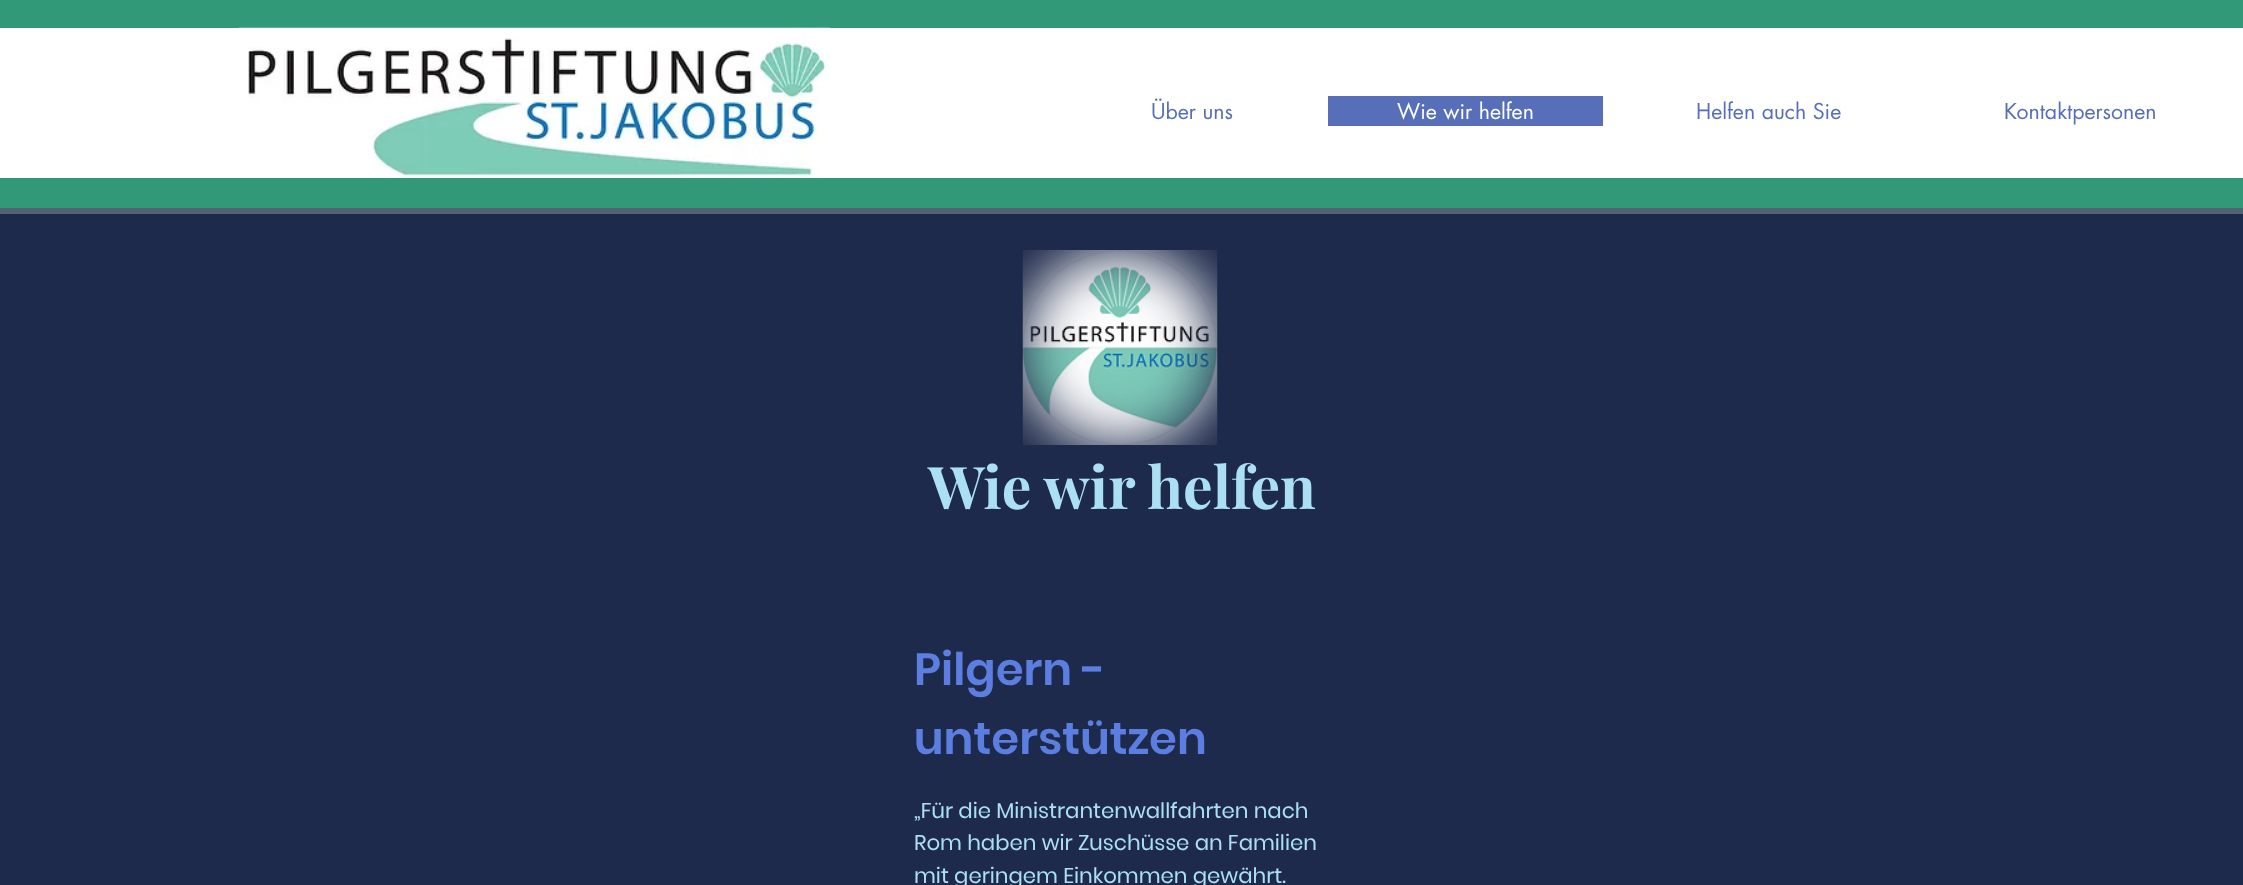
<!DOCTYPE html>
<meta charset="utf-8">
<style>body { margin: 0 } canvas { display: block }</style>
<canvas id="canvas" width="2243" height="885"></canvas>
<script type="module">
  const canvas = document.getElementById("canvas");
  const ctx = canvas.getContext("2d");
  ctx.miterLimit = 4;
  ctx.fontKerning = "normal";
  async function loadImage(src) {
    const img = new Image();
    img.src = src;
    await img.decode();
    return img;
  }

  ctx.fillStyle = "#1e2a4b";
  ctx.fillRect(0, 0, 2243, 885);
  ctx.fillStyle = "#319978";
  ctx.fillRect(0, 0, 2243, 208);
  ctx.fillStyle = "#516371";
  ctx.fillRect(0, 208, 2243, 6);
  ctx.fillStyle = "#ffffff";
  ctx.fillRect(0, 28, 2243, 150);
  ctx.drawImage(await loadImage("img1.png"), 239, 27, 591, 150);
  ctx.font = "21.25px futura";
  ctx.fillStyle = "#566fb8";
  ctx.fillText("Über uns", 1151, 119);
  ctx.fillRect(1328, 96, 275, 30);
  ctx.fillStyle = "#ffffff";
  ctx.fillText("Wie wir helfen", 1397, 119);
  ctx.fillStyle = "#566fb8";
  ctx.fillText("Helfen auch Sie", 1696, 119);
  ctx.fillText("Kontaktpersonen", 2004, 119);
  ctx.drawImage(await loadImage("img2.png"), 1022, 250, 196, 195);
  ctx.font = "bold 58.75px Playfair Display";
  ctx.fillStyle = "#abe0f2";
  ctx.fillText("Wie wir helfen", 928, 509);
  ctx.font = "600 45px Poppins";
  ctx.fillStyle = "#5b7ee0";
  ctx.fillText("Pilgern -", 914, 685);
  ctx.fillText("unterstützen", 914, 754);
  ctx.font = "21.25px Poppins";
  ctx.fillStyle = "#abe0f2";
  ctx.fillText("„Für die Ministrantenwallfahrten nach", 914, 818);
  ctx.fillText("Rom haben wir Zuschüsse an Familien", 914, 850);
  ctx.fillText("mit geringem Einkommen gewährt.", 914, 883);
</script>
